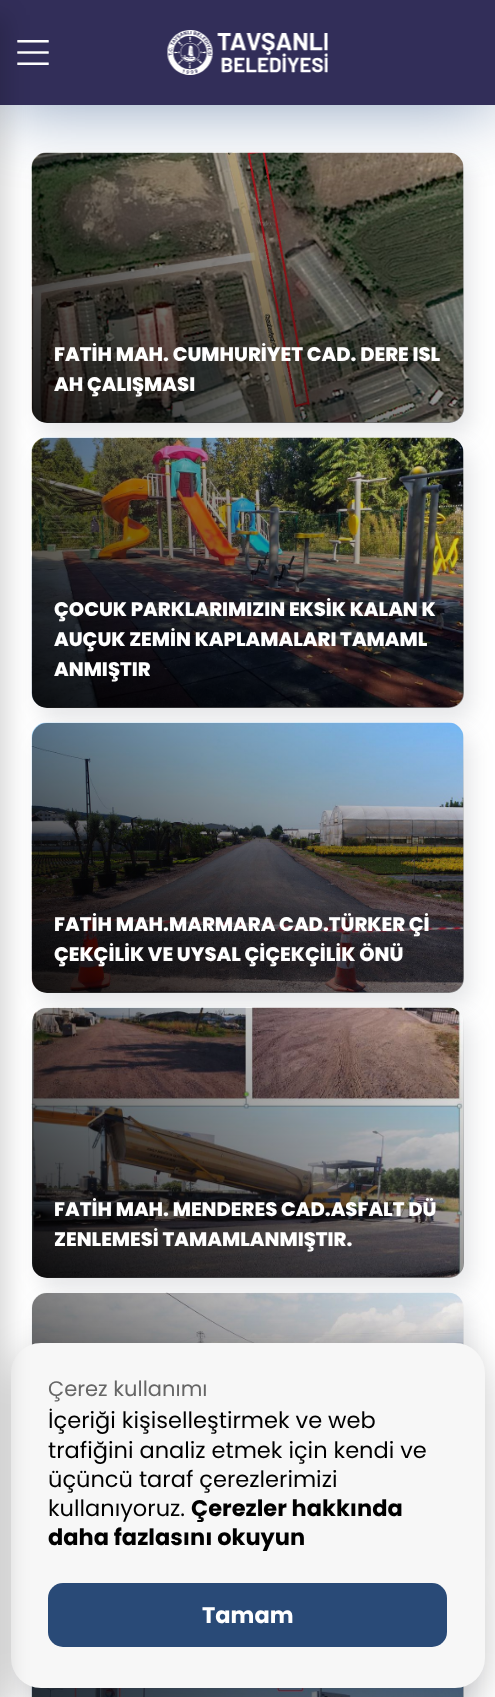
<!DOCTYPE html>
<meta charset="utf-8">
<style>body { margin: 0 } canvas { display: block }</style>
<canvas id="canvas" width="495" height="1697"></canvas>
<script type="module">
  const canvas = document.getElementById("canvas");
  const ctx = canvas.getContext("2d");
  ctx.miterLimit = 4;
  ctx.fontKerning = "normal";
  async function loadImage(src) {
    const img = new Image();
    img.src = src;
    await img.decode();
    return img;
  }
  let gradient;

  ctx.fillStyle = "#ffffff";
  ctx.fillRect(0, 0, 495, 1697);
  ctx.fillStyle = "rgba(73, 82, 91, 0.15)";
  ctx.filter = "blur(11px)";
  ctx.beginPath();
  ctx.roundRect(39, 164, 432, 270, 15);
  ctx.fill();
  ctx.filter = "none";
  ctx.drawImage(await loadImage("img3.png"), 31, 152, 433, 271);
  ctx.filter = "blur(11px)";
  ctx.beginPath();
  ctx.roundRect(39, 449, 432, 270, 15);
  ctx.fill();
  ctx.filter = "none";
  gradient = ctx.createLinearGradient(113, 480, 382, 96);
  gradient.addColorStop(0, "rgba(0, 0, 0, 0.9)");
  gradient.addColorStop(1, "rgba(0, 0, 0, 0)");
  ctx.fillStyle = gradient;
  ctx.beginPath();
  ctx.roundRect(32, 153, 432, 270, 15);
  ctx.fill();
  ctx.fillStyle = "rgba(13, 58, 117, 0.5)";
  ctx.filter = "blur(37.5px)";
  ctx.beginPath();
  ctx.rect(0, 0, 495, 105);
  ctx.fill();
  ctx.filter = "none";
  ctx.fillStyle = "#322e59";
  ctx.fillRect(0, 0, 495, 105);
  ctx.drawImage(await loadImage("img1.png"), 17, 40, 32, 25);
  ctx.drawImage(await loadImage("img2.png"), 167, 30, 161, 45);
  ctx.drawImage(await loadImage("img4.png"), 31, 437, 433, 271);
  ctx.fillStyle = "rgba(73, 82, 91, 0.15)";
  ctx.filter = "blur(11px)";
  ctx.beginPath();
  ctx.roundRect(39, 734, 432, 270, 15);
  ctx.fill();
  ctx.filter = "none";
  gradient = ctx.createLinearGradient(113, 765, 382, 381);
  gradient.addColorStop(0, "rgba(0, 0, 0, 0.9)");
  gradient.addColorStop(1, "rgba(0, 0, 0, 0)");
  ctx.fillStyle = gradient;
  ctx.beginPath();
  ctx.roundRect(32, 438, 432, 270, 15);
  ctx.fill();
  ctx.drawImage(await loadImage("img5.png"), 31, 722, 433, 271);
  ctx.fillStyle = "rgba(73, 82, 91, 0.15)";
  ctx.filter = "blur(11px)";
  ctx.beginPath();
  ctx.roundRect(39, 1019, 432, 270, 15);
  ctx.fill();
  ctx.filter = "none";
  gradient = ctx.createLinearGradient(113, 1050, 382, 666);
  gradient.addColorStop(0, "rgba(0, 0, 0, 0.9)");
  gradient.addColorStop(1, "rgba(0, 0, 0, 0)");
  ctx.fillStyle = gradient;
  ctx.beginPath();
  ctx.roundRect(32, 723, 432, 270, 15);
  ctx.fill();
  ctx.drawImage(await loadImage("img6.png"), 31, 1007, 432, 271);
  ctx.fillStyle = "rgba(73, 82, 91, 0.15)";
  ctx.filter = "blur(11px)";
  ctx.beginPath();
  ctx.roundRect(39, 1304, 432, 270, 15);
  ctx.fill();
  ctx.filter = "none";
  gradient = ctx.createLinearGradient(113, 1335, 382, 951);
  gradient.addColorStop(0, "rgba(0, 0, 0, 0.9)");
  gradient.addColorStop(1, "rgba(0, 0, 0, 0)");
  ctx.fillStyle = gradient;
  ctx.beginPath();
  ctx.roundRect(32, 1008, 432, 270, 15);
  ctx.fill();
  ctx.drawImage(await loadImage("img7.png"), 31, 1292, 433, 53);
  ctx.fillStyle = "rgba(73, 82, 91, 0.15)";
  ctx.filter = "blur(11px)";
  ctx.beginPath();
  ctx.roundRect(39, 1589, 432, 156, 15);
  ctx.fill();
  ctx.filter = "none";
  gradient = ctx.createLinearGradient(113, 1620, 382, 1236);
  gradient.addColorStop(0, "rgba(0, 0, 0, 0.9)");
  gradient.addColorStop(1, "rgba(0, 0, 0, 0)");
  ctx.fillStyle = gradient;
  ctx.beginPath();
  ctx.roundRect(32, 1293, 432, 270, 15);
  ctx.fill();
  ctx.drawImage(await loadImage("img8.png"), 31, 1686, 433, 11);
  gradient = ctx.createLinearGradient(113, 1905, 382, 1521);
  gradient.addColorStop(0, "rgba(0, 0, 0, 0.9)");
  gradient.addColorStop(1, "rgba(0, 0, 0, 0)");
  ctx.fillStyle = gradient;
  ctx.fillRect(32, 1686, 432, 11);
  ctx.fillStyle = "rgba(2, 2, 3, 0.2)";
  ctx.filter = "blur(19.5px)";
  ctx.beginPath();
  ctx.roundRect(11, 1356, 474, 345, 30);
  ctx.fill();
  ctx.filter = "none";
  ctx.fillStyle = "#f7f7f7";
  ctx.beginPath();
  ctx.roundRect(11, 1343, 474, 345, 30);
  ctx.fill();
  ctx.fillStyle = "rgba(0, 0, 0, 0.15)";
  ctx.filter = "blur(11px)";
  ctx.beginPath();
  ctx.rect(-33, 15, 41, 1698);
  ctx.fill();
  ctx.filter = "none";
  ctx.font = "800 19.5px Poppins";
  ctx.fillStyle = "#ffffff";
  ctx.fillText("FATİH MAH. CUMHURİYET CAD. DERE ISL", 54, 361);
  ctx.fillText("AH ÇALIŞMASI", 54, 391);
  ctx.fillText("ÇOCUK PARKLARIMIZIN EKSİK KALAN K", 54, 616);
  ctx.fillText("AUÇUK ZEMİN KAPLAMALARI TAMAML", 54, 646);
  ctx.fillText("ANMIŞTIR", 54, 676);
  ctx.fillText("FATİH MAH.MARMARA CAD.TÜRKER Çİ", 54, 931);
  ctx.fillText("ÇEKÇİLİK VE UYSAL ÇİÇEKÇİLİK ÖNÜ", 54, 961);
  ctx.fillText("FATİH MAH. MENDERES CAD.ASFALT DÜ", 54, 1216);
  ctx.fillText("ZENLEMESİ TAMAMLANMIŞTIR.", 54, 1246);
  ctx.font = "21px Poppins";
  ctx.fillStyle = "#666666";
  ctx.fillText("Çerez kullanımı", 48, 1396);
  ctx.font = "22.5px Poppins";
  ctx.fillStyle = "#000000";
  ctx.fillText("İçeriği kişiselleştirmek ve web", 48, 1428);
  ctx.fillText("trafiğini analiz etmek için kendi ve", 48, 1458);
  ctx.fillText("üçüncü taraf çerezlerimizi", 48, 1487);
  ctx.fillText("kullanıyoruz.", 48, 1516);
  ctx.font = "bold 22.5px Poppins";
  ctx.fillText("Çerezler hakkında", 191, 1516);
  ctx.fillText("daha fazlasını okuyun", 48, 1545);
  ctx.fillStyle = "#294a77";
  ctx.beginPath();
  ctx.roundRect(48, 1583, 399, 64, 15);
  ctx.fill();
  ctx.fillStyle = "#ffffff";
  ctx.fillText("Tamam", 202, 1623);
</script>
